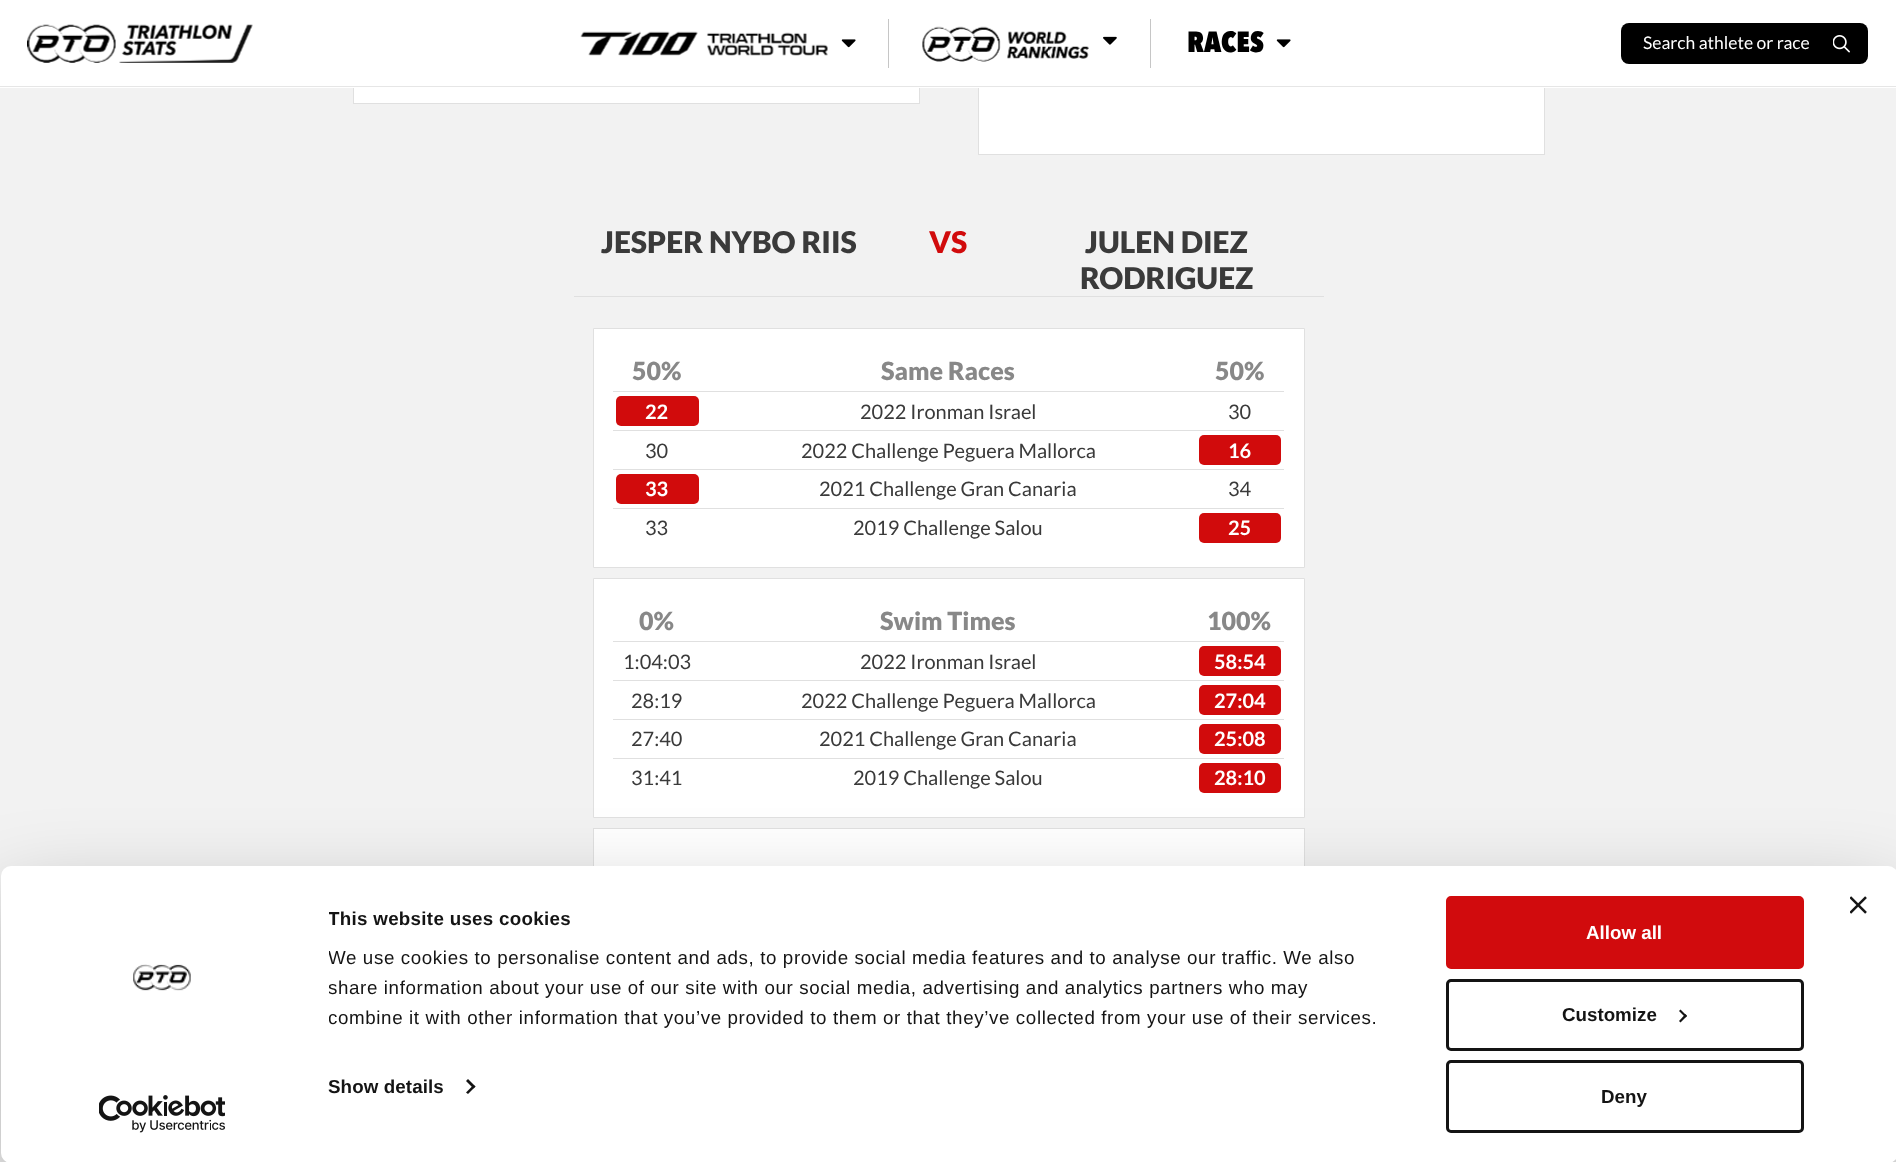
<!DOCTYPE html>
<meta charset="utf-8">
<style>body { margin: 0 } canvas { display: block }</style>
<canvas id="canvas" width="1896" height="1162"></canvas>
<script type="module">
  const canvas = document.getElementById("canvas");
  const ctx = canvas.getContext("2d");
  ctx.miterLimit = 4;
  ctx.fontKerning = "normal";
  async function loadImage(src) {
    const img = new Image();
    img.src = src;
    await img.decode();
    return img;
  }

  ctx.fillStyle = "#f2f2f2";
  ctx.fillRect(0, 0, 1896, 1162);
  ctx.fillStyle = "#ffffff";
  ctx.fillRect(354, 88, 565, 15);
  ctx.strokeStyle = "#e0e0e0";
  ctx.strokeRect(353.5, -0.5, 566, 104);
  ctx.fillRect(979, 88, 565, 66);
  ctx.strokeRect(978.5, -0.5, 566, 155);
  ctx.fillRect(0, 0, 1896, 88);
  ctx.fillStyle = "#e6e6e6";
  ctx.fillRect(0, 86, 1896, 1);
  ctx.drawImage(await loadImage("img1.png"), 27, 24, 226, 39);
  ctx.fillStyle = "#c6c6c6";
  ctx.fillRect(888, 19, 1, 49);
  ctx.drawImage(await loadImage("img2.png"), 580, 31, 248, 25);
  ctx.drawImage(await loadImage("img3.png"), 841, 39, 15, 9);
  ctx.fillRect(1150, 19, 1, 49);
  ctx.drawImage(await loadImage("img4.png"), 922, 26, 167, 36);
  ctx.drawImage(await loadImage("img5.png"), 1103, 36, 14, 9);
  ctx.font = "900 29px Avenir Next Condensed";
  ctx.fillStyle = "#000000";
  ctx.fillText("RACES", 1187, 52);
  ctx.drawImage(await loadImage("img3.png"), 1276, 39, 15, 9);
  ctx.beginPath();
  ctx.roundRect(1621, 23, 247, 41, 8);
  ctx.fill();
  ctx.font = "17.5px Lato";
  ctx.fillStyle = "#ffffff";
  ctx.fillText("Search athlete or race", 1643, 49);
  ctx.drawImage(await loadImage("img6.png"), 1833, 35, 17, 18);
  ctx.fillStyle = "#e0e0e0";
  ctx.fillRect(574, 296, 750, 1);
  ctx.font = "900 30px Lato";
  ctx.fillStyle = "#3a3a3a";
  ctx.fillText("JESPER NYBO RIIS", 601, 253);
  ctx.fillStyle = "#d10b0c";
  ctx.fillText("VS", 929, 253);
  ctx.fillStyle = "#3a3a3a";
  ctx.fillText("JULEN DIEZ", 1085, 253);
  ctx.fillText("RODRIGUEZ", 1080, 289);
  ctx.fillStyle = "#ffffff";
  ctx.beginPath();
  ctx.rect(593.5, 328.5, 711, 239);
  ctx.fill();
  ctx.stroke();
  ctx.font = "900 25px Lato";
  ctx.fillStyle = "#888888";
  ctx.fillText("50%", 632, 380);
  ctx.fillText("Same Races", 881, 380);
  ctx.fillText("50%", 1215, 380);
  ctx.fillStyle = "#d10b0c";
  ctx.beginPath();
  ctx.roundRect(616, 396, 83, 30, 5);
  ctx.fill();
  ctx.font = "bold 20px Lato";
  ctx.fillStyle = "#ffffff";
  ctx.fillText("22", 645, 419);
  ctx.font = "20px Lato";
  ctx.fillStyle = "#3a3a3a";
  ctx.fillText("2022 Ironman Israel", 860, 419);
  ctx.fillStyle = "#e0e0e0";
  ctx.fillRect(613, 391, 671, 1);
  ctx.fillStyle = "#3a3a3a";
  ctx.fillText("30", 1228, 419);
  ctx.fillText("30", 645, 458);
  ctx.fillText("2022 Challenge Peguera Mallorca", 801, 458);
  ctx.fillStyle = "#e0e0e0";
  ctx.fillRect(613, 430, 671, 1);
  ctx.fillStyle = "#d10b0c";
  ctx.beginPath();
  ctx.roundRect(1199, 435, 82, 30, 5);
  ctx.fill();
  ctx.font = "bold 20px Lato";
  ctx.fillStyle = "#ffffff";
  ctx.fillText("16", 1228, 458);
  ctx.fillStyle = "#d10b0c";
  ctx.beginPath();
  ctx.roundRect(616, 474, 83, 30, 5);
  ctx.fill();
  ctx.fillStyle = "#ffffff";
  ctx.fillText("33", 645, 496);
  ctx.font = "20px Lato";
  ctx.fillStyle = "#3a3a3a";
  ctx.fillText("2021 Challenge Gran Canaria", 819, 496);
  ctx.fillStyle = "#e0e0e0";
  ctx.fillRect(613, 469, 671, 1);
  ctx.fillStyle = "#3a3a3a";
  ctx.fillText("34", 1228, 496);
  ctx.fillText("33", 645, 535);
  ctx.fillText("2019 Challenge Salou", 853, 535);
  ctx.fillStyle = "#e0e0e0";
  ctx.fillRect(613, 508, 671, 1);
  ctx.fillStyle = "#d10b0c";
  ctx.beginPath();
  ctx.roundRect(1199, 513, 82, 30, 5);
  ctx.fill();
  ctx.font = "bold 20px Lato";
  ctx.fillStyle = "#ffffff";
  ctx.fillText("25", 1228, 535);
  ctx.beginPath();
  ctx.rect(593.5, 578.5, 711, 239);
  ctx.fill();
  ctx.stroke();
  ctx.font = "900 25px Lato";
  ctx.fillStyle = "#888888";
  ctx.fillText("0%", 639, 630);
  ctx.fillText("Swim Times", 880, 630);
  ctx.fillText("100%", 1207, 630);
  ctx.font = "20px Lato";
  ctx.fillStyle = "#3a3a3a";
  ctx.fillText("1:04:03", 623, 669);
  ctx.fillText("2022 Ironman Israel", 860, 669);
  ctx.fillStyle = "#e0e0e0";
  ctx.fillRect(613, 641, 671, 1);
  ctx.fillStyle = "#d10b0c";
  ctx.beginPath();
  ctx.roundRect(1199, 646, 82, 30, 5);
  ctx.fill();
  ctx.font = "bold 20px Lato";
  ctx.fillStyle = "#ffffff";
  ctx.fillText("58:54", 1214, 669);
  ctx.font = "20px Lato";
  ctx.fillStyle = "#3a3a3a";
  ctx.fillText("28:19", 631, 708);
  ctx.fillText("2022 Challenge Peguera Mallorca", 801, 708);
  ctx.fillStyle = "#e0e0e0";
  ctx.fillRect(613, 680, 671, 1);
  ctx.fillStyle = "#d10b0c";
  ctx.beginPath();
  ctx.roundRect(1199, 685, 82, 30, 5);
  ctx.fill();
  ctx.font = "bold 20px Lato";
  ctx.fillStyle = "#ffffff";
  ctx.fillText("27:04", 1214, 708);
  ctx.font = "20px Lato";
  ctx.fillStyle = "#3a3a3a";
  ctx.fillText("27:40", 631, 746);
  ctx.fillText("2021 Challenge Gran Canaria", 819, 746);
  ctx.fillStyle = "#e0e0e0";
  ctx.fillRect(613, 719, 671, 1);
  ctx.fillStyle = "#d10b0c";
  ctx.beginPath();
  ctx.roundRect(1199, 724, 82, 30, 5);
  ctx.fill();
  ctx.font = "bold 20px Lato";
  ctx.fillStyle = "#ffffff";
  ctx.fillText("25:08", 1214, 746);
  ctx.font = "20px Lato";
  ctx.fillStyle = "#3a3a3a";
  ctx.fillText("31:41", 631, 785);
  ctx.fillText("2019 Challenge Salou", 853, 785);
  ctx.fillStyle = "#e0e0e0";
  ctx.fillRect(613, 758, 671, 1);
  ctx.fillStyle = "#d10b0c";
  ctx.beginPath();
  ctx.roundRect(1199, 763, 82, 30, 5);
  ctx.fill();
  ctx.font = "bold 20px Lato";
  ctx.fillStyle = "#ffffff";
  ctx.fillText("28:10", 1214, 785);
  ctx.fillRect(594, 829, 710, 37);
  ctx.strokeRect(593.5, 828.5, 711, 239);
  ctx.fillStyle = "rgba(0, 0, 0, 0.3)";
  ctx.filter = "blur(44px)";
  ctx.beginPath();
  ctx.roundRect(1, 904, 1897, 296, 10);
  ctx.fill();
  ctx.filter = "none";
  ctx.fillStyle = "#ffffff";
  ctx.beginPath();
  ctx.roundRect(1, 866, 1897, 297, 10);
  ctx.fill();
  ctx.drawImage(await loadImage("img7.png"), 1850, 896, 17, 18);
  ctx.drawImage(await loadImage("img8.png"), 133, 964, 58, 27);
  ctx.drawImage(await loadImage("img9.png"), 99, 1095, 126, 38);
  ctx.save();
  ctx.beginPath();
  ctx.rect(329, 904, 1081, 129);
  ctx.clip();
  ctx.letterSpacing = "0.3px";
  ctx.font = "bold 18.75px Liberation Sans";
  ctx.fillStyle = "#141414";
  ctx.fillText("This website uses cookies", 328, 925);
  ctx.letterSpacing = "0.62px";
  ctx.font = "18.75px Liberation Sans";
  ctx.fillText("We use cookies to personalise content and ads, to provide social media features and to analyse our traffic. We also", 328, 964);
  ctx.fillText("share information about your use of our site with our social media, advertising and analytics partners who may", 328, 994);
  ctx.fillText("combine it with other information that you’ve provided to them or that they’ve collected from your use of their services.", 328, 1024);
  ctx.restore();
  ctx.letterSpacing = "0.1px";
  ctx.font = "bold 18.75px Liberation Sans";
  ctx.fillStyle = "#141414";
  ctx.fillText("Show details", 328, 1093);
  ctx.beginPath();
  ctx.moveTo(468, 1079);
  ctx.lineTo(475.5, 1086.5);
  ctx.lineTo(473.5, 1088.5);
  ctx.lineTo(466, 1081);
  ctx.closePath();
  ctx.fill();
  ctx.beginPath();
  ctx.moveTo(473.5, 1085);
  ctx.lineTo(475.5, 1086.5);
  ctx.lineTo(468, 1094);
  ctx.lineTo(466, 1092.5);
  ctx.closePath();
  ctx.fill();
  ctx.fillStyle = "#d10b0d";
  ctx.beginPath();
  ctx.roundRect(1447.5, 897.5, 355, 70, 3.5);
  ctx.fill();
  ctx.strokeStyle = "#d10b0d";
  ctx.lineWidth = 3;
  ctx.stroke();
  ctx.letterSpacing = "0px";
  ctx.fillStyle = "#ffffff";
  ctx.fillText("Allow all", 1586, 939);
  ctx.beginPath();
  ctx.roundRect(1447.5, 980.5, 355, 69, 3.5);
  ctx.strokeStyle = "#141414";
  ctx.stroke();
  ctx.fillStyle = "#141414";
  ctx.fillText("Customize", 1562, 1021);
  ctx.beginPath();
  ctx.moveTo(1680.5, 1009.5);
  ctx.lineTo(1687, 1016);
  ctx.lineTo(1685.5, 1017.5);
  ctx.lineTo(1679, 1011);
  ctx.closePath();
  ctx.fill();
  ctx.beginPath();
  ctx.moveTo(1685.5, 1014);
  ctx.lineTo(1687, 1016);
  ctx.lineTo(1680.5, 1022.5);
  ctx.lineTo(1679, 1021);
  ctx.closePath();
  ctx.fill();
  ctx.beginPath();
  ctx.roundRect(1447.5, 1061.5, 355, 70, 3.5);
  ctx.stroke();
  ctx.fillText("Deny", 1601, 1103);
</script>
